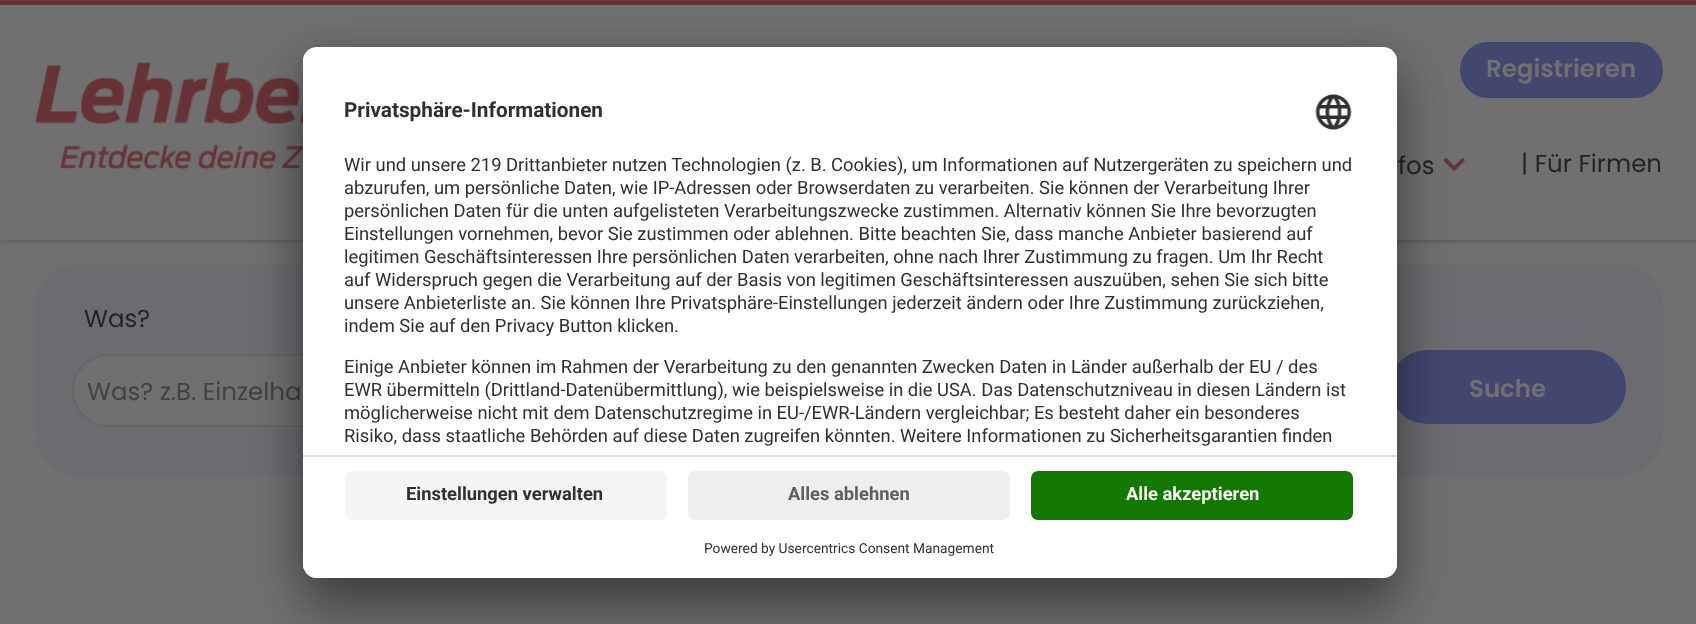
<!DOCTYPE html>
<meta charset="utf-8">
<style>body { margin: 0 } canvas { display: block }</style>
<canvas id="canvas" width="1696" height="624"></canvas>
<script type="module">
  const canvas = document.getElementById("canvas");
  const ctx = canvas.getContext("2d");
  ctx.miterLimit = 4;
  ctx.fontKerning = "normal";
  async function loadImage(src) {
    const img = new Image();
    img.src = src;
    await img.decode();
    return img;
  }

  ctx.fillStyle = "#707070";
  ctx.fillRect(0, 0, 1696, 624);
  ctx.fillStyle = "#653336";
  ctx.fillRect(0, 0, 1696, 5);
  ctx.fillStyle = "rgba(36, 36, 36, 0.25)";
  ctx.filter = "blur(2.5px)";
  ctx.beginPath();
  ctx.rect(0, 7, 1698, 235);
  ctx.fill();
  ctx.filter = "none";
  ctx.fillStyle = "#707070";
  ctx.fillRect(0, 5, 1696, 235);
  ctx.drawImage(await loadImage("img1.png"), 35, 62, 268, 108);
  ctx.fillStyle = "#424770";
  ctx.beginPath();
  ctx.roundRect(1461, 43, 201, 54, 27);
  ctx.fill();
  ctx.strokeStyle = "#424770";
  ctx.lineWidth = 2;
  ctx.stroke();
  ctx.font = "600 24.5px Poppins";
  ctx.fillStyle = "#707070";
  ctx.fillText("Registrieren", 1486, 77);
  ctx.font = "24.5px Poppins";
  ctx.fillStyle = "#242424";
  ctx.fillText("fos", 1398, 174);
  ctx.drawImage(await loadImage("img2.png"), 1443, 158, 22, 13);
  ctx.fillText("| Für Firmen", 1521, 172);
  ctx.fillStyle = "#6c6c70";
  ctx.beginPath();
  ctx.roundRect(35, 264, 1628, 212, 44);
  ctx.fill();
  ctx.fillStyle = "#242424";
  ctx.fillText("Was?", 84, 327);
  ctx.fillStyle = "#707070";
  ctx.beginPath();
  ctx.roundRect(73, 355, 563, 71, 35.5);
  ctx.fill();
  ctx.strokeStyle = "#666666";
  ctx.stroke();
  ctx.fillStyle = "#424242";
  ctx.fillText("Was? z.B. Einzelha", 87, 400);
  ctx.fillStyle = "#424770";
  ctx.beginPath();
  ctx.roundRect(1391, 351, 234, 72, 36);
  ctx.fill();
  ctx.strokeStyle = "#424770";
  ctx.stroke();
  ctx.font = "600 24.5px Poppins";
  ctx.fillStyle = "#707070";
  ctx.fillText("Suche", 1469, 397);
  ctx.fillStyle = "rgba(0, 0, 0, 0.3)";
  ctx.filter = "blur(24.5px)";
  ctx.beginPath();
  ctx.roundRect(303, 82, 1094, 531, 14);
  ctx.fill();
  ctx.filter = "none";
  ctx.fillStyle = "rgba(0, 0, 0, 0.22)";
  ctx.filter = "blur(23px)";
  ctx.beginPath();
  ctx.roundRect(303, 56, 1094, 530, 14);
  ctx.fill();
  ctx.filter = "none";
  ctx.fillStyle = "#ffffff";
  ctx.beginPath();
  ctx.roundRect(303, 47, 1094, 531, 14);
  ctx.fill();
  ctx.save();
  ctx.beginPath();
  ctx.roundRect(303, 47, 1094, 531, 14);
  ctx.clip();
  ctx.beginPath();
  ctx.roundRect(303, 47, 1094, 408, [14, 14, 0, 0]);
  ctx.clip();
  ctx.fillRect(303, 49, 1094, 406);
  ctx.restore();
  ctx.font = "bold 20.75px Roboto";
  ctx.fillStyle = "#303030";
  ctx.fillText("Privatsphäre-Informationen", 344, 117);
  ctx.drawImage(await loadImage("img3.png"), 1315, 94, 37, 36);
  ctx.font = "18.38px Roboto";
  ctx.fillText("Wir und unsere 219 Drittanbieter nutzen Technologien (z. B. Cookies), um Informationen auf Nutzergeräten zu speichern und", 344, 171);
  ctx.fillText("abzurufen, um persönliche Daten, wie IP-Adressen oder Browserdaten zu verarbeiten. Sie können der Verarbeitung Ihrer", 344, 194);
  ctx.fillText("persönlichen Daten für die unten aufgelisteten Verarbeitungszwecke zustimmen. Alternativ können Sie Ihre bevorzugten", 344, 217);
  ctx.fillText("Einstellungen vornehmen, bevor Sie zustimmen oder ablehnen. Bitte beachten Sie, dass manche Anbieter basierend auf", 344, 240);
  ctx.fillText("legitimen Geschäftsinteressen Ihre persönlichen Daten verarbeiten, ohne nach Ihrer Zustimmung zu fragen. Um Ihr Recht", 344, 263);
  ctx.fillText("auf Widerspruch gegen die Verarbeitung auf der Basis von legitimen Geschäftsinteressen auszuüben, sehen Sie sich bitte", 344, 286);
  ctx.fillText("unsere Anbieterliste an. Sie können Ihre Privatsphäre-Einstellungen jederzeit ändern oder Ihre Zustimmung zurückziehen,", 344, 309);
  ctx.fillText("indem Sie auf den Privacy Button klicken.", 344, 332);
  ctx.fillText("Einige Anbieter können im Rahmen der Verarbeitung zu den genannten Zwecken Daten in Länder außerhalb der EU / des", 344, 373);
  ctx.fillText("EWR übermitteln (Drittland-Datenübermittlung), wie beispielsweise in die USA. Das Datenschutzniveau in diesen Ländern ist", 344, 396);
  ctx.fillText("möglicherweise nicht mit dem Datenschutzregime in EU-/EWR-Ländern vergleichbar; Es besteht daher ein besonderes", 344, 419);
  ctx.fillText("Risiko, dass staatliche Behörden auf diese Daten zugreifen könnten. Weitere Informationen zu Sicherheitsgarantien finden", 344, 442);
  ctx.fillStyle = "#ffffff";
  ctx.beginPath();
  ctx.roundRect(303, 455, 1094, 123, [0, 0, 14, 14]);
  ctx.fill();
  ctx.fillStyle = "#dddddd";
  ctx.fillRect(303, 455, 1094, 2);
  ctx.fillStyle = "#f5f5f5";
  ctx.beginPath();
  ctx.roundRect(345, 471, 322, 49, 7);
  ctx.fill();
  ctx.font = "bold 18.38px Roboto";
  ctx.fillStyle = "#303030";
  ctx.fillText("Einstellungen verwalten", 406, 500);
  ctx.fillStyle = "#f1eeee";
  ctx.beginPath();
  ctx.roundRect(688, 471, 322, 49, 7);
  ctx.fill();
  ctx.fillStyle = "#605e5e";
  ctx.fillText("Alles ablehnen", 788, 500);
  ctx.fillStyle = "#137800";
  ctx.beginPath();
  ctx.roundRect(1031, 471, 322, 49, 7);
  ctx.fill();
  ctx.fillStyle = "#fafafa";
  ctx.fillText("Alle akzeptieren", 1126, 500);
  ctx.font = "13.75px Roboto";
  ctx.fillStyle = "#303030";
  ctx.fillText("Powered by Usercentrics Consent Management", 704, 553);
</script>
